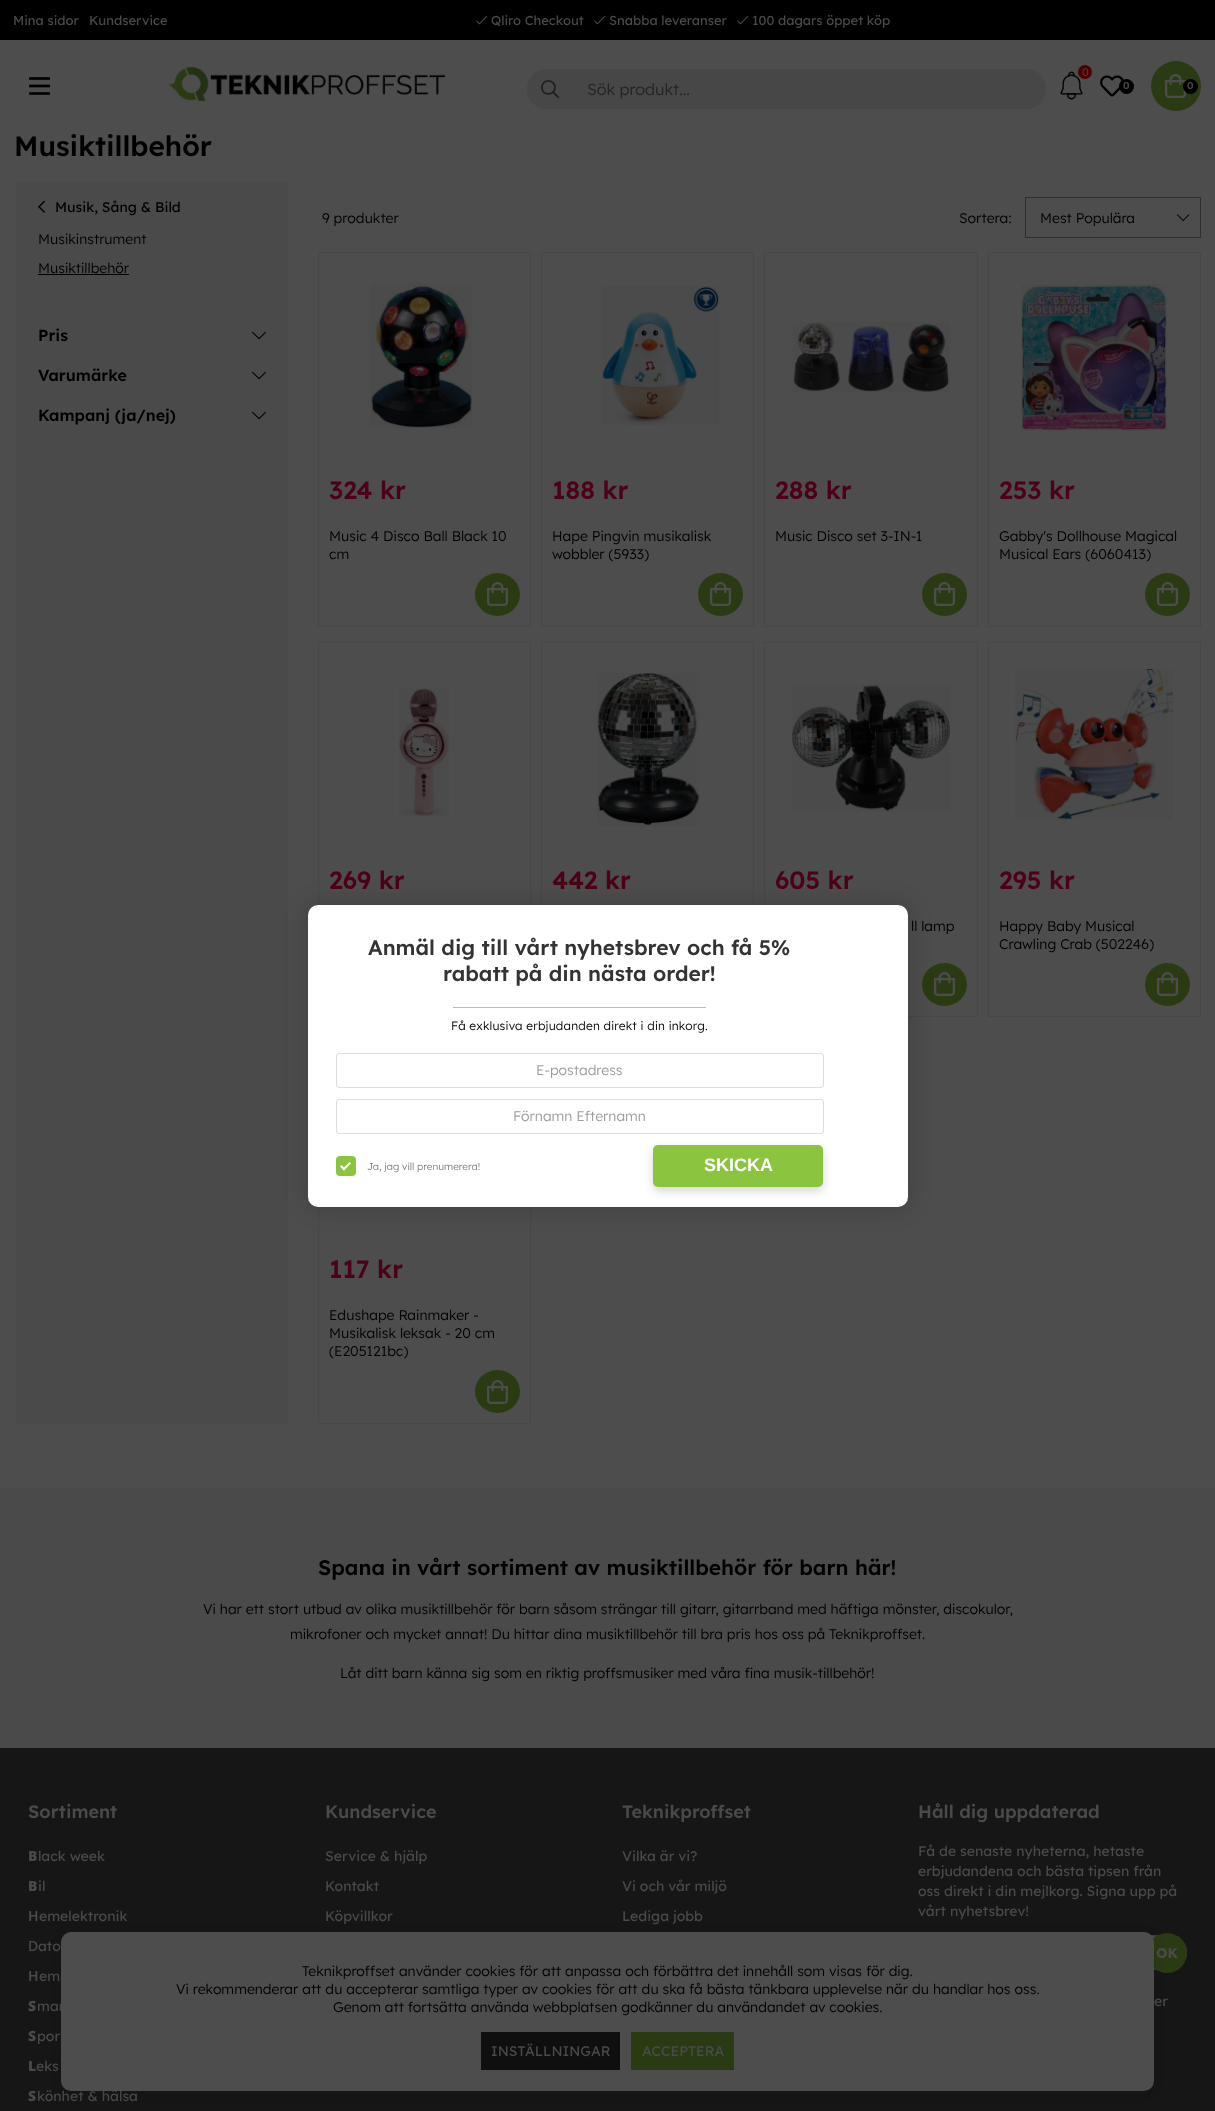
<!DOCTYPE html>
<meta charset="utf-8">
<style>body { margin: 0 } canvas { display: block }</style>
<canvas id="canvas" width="1215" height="2111"></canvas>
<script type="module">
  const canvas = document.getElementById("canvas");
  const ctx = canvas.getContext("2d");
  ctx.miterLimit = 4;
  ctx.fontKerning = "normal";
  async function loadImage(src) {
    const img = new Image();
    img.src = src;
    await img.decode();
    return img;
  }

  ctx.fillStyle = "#4d4d4d";
  ctx.fillRect(0, 0, 1215, 2111);
  ctx.fillStyle = "#000000";
  ctx.fillRect(0, 0, 1215, 40);
  ctx.font = "500 13px Lexend";
  ctx.fillStyle = "#4a4a4a";
  ctx.fillText("Mina sidor", 13, 25);
  ctx.fillText("Kundservice", 89, 25);
  ctx.drawImage(await loadImage("img1.png"), 476, 15, 12, 10);
  ctx.fillText("Qliro Checkout", 491, 25);
  ctx.drawImage(await loadImage("img1.png"), 594, 15, 12, 10);
  ctx.fillText("Snabba leveranser", 609, 25);
  ctx.drawImage(await loadImage("img1.png"), 737, 15, 12, 10);
  ctx.fillText("100 dagars öppet köp", 752, 25);
  ctx.drawImage(await loadImage("img2.png"), 29, 77, 21, 18);
  ctx.drawImage(await loadImage("img3.png"), 169, 67, 276, 35);
  ctx.fillStyle = "#474747";
  ctx.beginPath();
  ctx.roundRect(527, 69, 519, 40, 20);
  ctx.fill();
  ctx.drawImage(await loadImage("img4.png"), 541, 80, 19, 19);
  ctx.font = "16px Lexend";
  ctx.fillStyle = "#232323";
  ctx.fillText("Sök produkt...", 587, 95);
  ctx.drawImage(await loadImage("img5.png"), 1060, 71, 23, 29);
  ctx.fillStyle = "#4d0000";
  ctx.beginPath();
  ctx.arc(1085, 72, 7, 0, Math.PI * 2);
  ctx.fill();
  ctx.font = "11px Lexend";
  ctx.fillStyle = "#4a4a4a";
  ctx.fillText("0", 1082, 76);
  ctx.drawImage(await loadImage("img6.png"), 1100, 75, 24, 22);
  ctx.fillStyle = "#000000";
  ctx.beginPath();
  ctx.arc(1126.5, 86.5, 7.5, 0, Math.PI * 2);
  ctx.fill();
  ctx.font = "600 10px Lexend";
  ctx.fillStyle = "#4a4a4a";
  ctx.fillText("0", 1123, 89);
  ctx.fillStyle = "#2a3b13";
  ctx.beginPath();
  ctx.arc(1176, 86, 25, 0, Math.PI * 2);
  ctx.fill();
  ctx.drawImage(await loadImage("img7.png"), 1165, 74, 21, 24);
  ctx.fillStyle = "#000000";
  ctx.beginPath();
  ctx.arc(1190.5, 86.5, 7.5, 0, Math.PI * 2);
  ctx.fill();
  ctx.fillStyle = "#4a4a4a";
  ctx.fillText("0", 1187, 89);
  ctx.font = "600 28px Lexend";
  ctx.fillStyle = "#000000";
  ctx.fillText("Musiktillbehör", 14, 156);
  ctx.fillStyle = "#4a4a4a";
  ctx.fillRect(16, 182, 272, 1242);
  ctx.drawImage(await loadImage("img8.png"), 38, 200, 7, 13);
  ctx.font = "500 14px Lexend";
  ctx.fillStyle = "#000000";
  ctx.fillText("Musik, Sång & Bild", 55, 212);
  ctx.font = "14px Lexend";
  ctx.fillText("Musikinstrument", 38, 244);
  ctx.fillText("Musiktillbehör", 38, 273);
  ctx.fillRect(38, 274, 91, 1);
  ctx.font = "600 16px Lexend";
  ctx.fillText("Pris", 38, 341);
  ctx.drawImage(await loadImage("img9.png"), 252, 331, 14, 9);
  ctx.fillText("Varumärke", 38, 381);
  ctx.drawImage(await loadImage("img9.png"), 252, 371, 14, 9);
  ctx.fillText("Kampanj (ja/nej)", 38, 421);
  ctx.drawImage(await loadImage("img9.png"), 252, 411, 14, 9);
  ctx.font = "14px Lexend";
  ctx.fillText("9 produkter", 322, 223);
  ctx.fillText("Sortera:", 959, 223);
  ctx.strokeStyle = "#2e2e2e";
  ctx.strokeRect(1025.5, 197.5, 175, 40);
  ctx.fillText("Mest Populära", 1040, 223);
  ctx.drawImage(await loadImage("img10.png"), 1177, 214, 13, 7);
  ctx.strokeStyle = "#474747";
  ctx.strokeRect(318.5, 252.5, 212, 374);
  ctx.drawImage(await loadImage("img11.png"), 370, 283, 102, 145);
  ctx.font = "600 25px Lexend";
  ctx.fillStyle = "#4d0017";
  ctx.fillText("324 kr", 329, 499);
  ctx.font = "14px Lexend";
  ctx.fillStyle = "#000000";
  ctx.fillText("Music 4 Disco Ball Black 10", 329, 541);
  ctx.fillText("cm", 329, 559);
  ctx.fillStyle = "#2a3b13";
  ctx.beginPath();
  ctx.ellipse(497.5, 594.5, 22.5, 21.5, 0, 0, Math.PI * 2);
  ctx.fill();
  ctx.drawImage(await loadImage("img7.png"), 487, 582, 21, 24);
  ctx.strokeRect(541.5, 252.5, 212, 374);
  ctx.drawImage(await loadImage("img12.png"), 602, 286, 117, 139);
  ctx.font = "600 25px Lexend";
  ctx.fillStyle = "#4d0017";
  ctx.fillText("188 kr", 552, 499);
  ctx.font = "14px Lexend";
  ctx.fillStyle = "#000000";
  ctx.fillText("Hape Pingvin musikalisk", 552, 541);
  ctx.fillText("wobbler (5933)", 552, 559);
  ctx.fillStyle = "#2a3b13";
  ctx.beginPath();
  ctx.ellipse(720.5, 594.5, 22.5, 21.5, 0, 0, Math.PI * 2);
  ctx.fill();
  ctx.drawImage(await loadImage("img7.png"), 710, 582, 21, 24);
  ctx.strokeRect(764.5, 252.5, 213, 374);
  ctx.drawImage(await loadImage("img13.png"), 793, 322, 157, 70);
  ctx.font = "600 25px Lexend";
  ctx.fillStyle = "#4d0017";
  ctx.fillText("288 kr", 775, 499);
  ctx.font = "14px Lexend";
  ctx.fillStyle = "#000000";
  ctx.fillText("Music Disco set 3-IN-1", 775, 541);
  ctx.fillStyle = "#2a3b13";
  ctx.beginPath();
  ctx.ellipse(944.5, 594.5, 22.5, 21.5, 0, 0, Math.PI * 2);
  ctx.fill();
  ctx.drawImage(await loadImage("img7.png"), 934, 582, 21, 24);
  ctx.strokeRect(988.5, 252.5, 212, 374);
  ctx.drawImage(await loadImage("img14.png"), 1021, 284, 146, 147);
  ctx.font = "600 25px Lexend";
  ctx.fillStyle = "#4d0017";
  ctx.fillText("253 kr", 999, 499);
  ctx.font = "14px Lexend";
  ctx.fillStyle = "#000000";
  ctx.fillText("Gabby's Dollhouse Magical", 999, 541);
  ctx.fillText("Musical Ears (6060413)", 999, 559);
  ctx.fillStyle = "#2a3b13";
  ctx.beginPath();
  ctx.ellipse(1167.5, 594.5, 22.5, 21.5, 0, 0, Math.PI * 2);
  ctx.fill();
  ctx.drawImage(await loadImage("img7.png"), 1157, 582, 21, 24);
  ctx.strokeRect(318.5, 642.5, 212, 374);
  ctx.drawImage(await loadImage("img15.png"), 399, 688, 50, 128);
  ctx.font = "600 25px Lexend";
  ctx.fillStyle = "#4d0017";
  ctx.fillText("269 kr", 329, 889);
  ctx.strokeRect(541.5, 642.5, 212, 374);
  ctx.drawImage(await loadImage("img16.png"), 597, 673, 103, 153);
  ctx.fillText("442 kr", 552, 889);
  ctx.strokeRect(764.5, 642.5, 213, 374);
  ctx.drawImage(await loadImage("img17.png"), 792, 684, 158, 128);
  ctx.fillText("605 kr", 775, 889);
  ctx.font = "14px Lexend";
  ctx.fillStyle = "#000000";
  ctx.fillText("ll lamp", 911, 931);
  ctx.fillStyle = "#2a3b13";
  ctx.beginPath();
  ctx.ellipse(944.5, 984.5, 22.5, 21.5, 0, 0, Math.PI * 2);
  ctx.fill();
  ctx.drawImage(await loadImage("img7.png"), 934, 972, 21, 24);
  ctx.strokeRect(988.5, 642.5, 212, 374);
  ctx.drawImage(await loadImage("img18.png"), 1015, 669, 158, 151);
  ctx.font = "600 25px Lexend";
  ctx.fillStyle = "#4d0017";
  ctx.fillText("295 kr", 999, 889);
  ctx.font = "14px Lexend";
  ctx.fillStyle = "#000000";
  ctx.fillText("Happy Baby Musical", 999, 931);
  ctx.fillText("Crawling Crab (502246)", 999, 949);
  ctx.fillStyle = "#2a3b13";
  ctx.beginPath();
  ctx.ellipse(1167.5, 984.5, 22.5, 21.5, 0, 0, Math.PI * 2);
  ctx.fill();
  ctx.drawImage(await loadImage("img7.png"), 1157, 972, 21, 24);
  ctx.strokeRect(318.5, 1032.5, 212, 391);
  ctx.font = "600 25px Lexend";
  ctx.fillStyle = "#4d0017";
  ctx.fillText("117 kr", 329, 1278);
  ctx.font = "14px Lexend";
  ctx.fillStyle = "#000000";
  ctx.fillText("Edushape Rainmaker -", 329, 1320);
  ctx.fillText("Musikalisk leksak - 20 cm", 329, 1338);
  ctx.fillText("(E205121bc)", 329, 1356);
  ctx.fillStyle = "#2a3b13";
  ctx.beginPath();
  ctx.ellipse(497.5, 1391.5, 22.5, 21.5, 0, 0, Math.PI * 2);
  ctx.fill();
  ctx.drawImage(await loadImage("img7.png"), 487, 1380, 21, 24);
  ctx.fillStyle = "#4a4a4a";
  ctx.fillRect(0, 1488, 1215, 260);
  ctx.font = "600 21px Lexend";
  ctx.fillStyle = "#000000";
  ctx.fillText("Spana in vårt sortiment av musiktillbehör för barn här!", 318, 1575);
  ctx.font = "14px Lexend";
  ctx.fillText("Vi har ett stort utbud av olika musiktillbehör för barn såsom strängar till gitarr, gitarrband med häftiga mönster, discokulor,", 203, 1614);
  ctx.fillText("mikrofoner och mycket annat! Du hittar dina musiktillbehör till bra pris hos oss på Teknikproffset.", 290, 1639);
  ctx.fillText("Låt ditt barn känna sig som en riktig proffsmusiker med våra fina musik-tillbehör!", 340, 1678);
  ctx.fillStyle = "#161616";
  ctx.fillRect(0, 1748, 1215, 363);
  ctx.font = "600 18px Lexend";
  ctx.fillStyle = "#4a4a4a";
  ctx.fillText("Sortiment", 28, 1818);
  ctx.font = "900 14px Noto Sans";
  ctx.fillText("B", 28, 1861);
  ctx.font = "500 14px Lexend";
  ctx.fillText("lack week", 38, 1861);
  ctx.font = "900 14px Noto Sans";
  ctx.fillText("B", 28, 1891);
  ctx.font = "500 14px Lexend";
  ctx.fillText("il", 38, 1891);
  ctx.font = "600 14px Noto Sans";
  ctx.fillText("H", 28, 1921);
  ctx.font = "500 14px Lexend";
  ctx.fillText("emelektronik", 39, 1921);
  ctx.font = "500 14px Noto Sans";
  ctx.fillText("D", 28, 1951);
  ctx.font = "500 14px Lexend";
  ctx.fillText("ato", 38, 1951);
  ctx.font = "600 14px Noto Sans";
  ctx.fillText("H", 28, 1981);
  ctx.font = "500 14px Lexend";
  ctx.fillText("em", 39, 1981);
  ctx.font = "900 14px Noto Sans";
  ctx.fillText("S", 28, 2011);
  ctx.font = "500 14px Lexend";
  ctx.fillText("mar", 37, 2011);
  ctx.font = "900 14px Noto Sans";
  ctx.fillText("S", 28, 2041);
  ctx.font = "500 14px Lexend";
  ctx.fillText("por", 37, 2041);
  ctx.font = "900 14px Noto Sans";
  ctx.fillText("L", 28, 2071);
  ctx.font = "500 14px Lexend";
  ctx.fillText("eks", 36, 2071);
  ctx.font = "900 14px Noto Sans";
  ctx.fillText("S", 28, 2101);
  ctx.font = "500 14px Lexend";
  ctx.fillText("könhet & hälsa", 37, 2101);
  ctx.font = "600 18px Lexend";
  ctx.fillText("Kundservice", 325, 1818);
  ctx.font = "500 14px Lexend";
  ctx.fillText("Service & hjälp", 325, 1861);
  ctx.fillText("Kontakt", 325, 1891);
  ctx.fillText("Köpvillkor", 325, 1921);
  ctx.font = "600 18px Lexend";
  ctx.fillText("Teknikproffset", 622, 1818);
  ctx.font = "500 14px Lexend";
  ctx.fillText("Vilka är vi?", 622, 1861);
  ctx.fillText("Vi och vår miljö", 622, 1891);
  ctx.fillText("Lediga jobb", 622, 1921);
  ctx.font = "600 18px Lexend";
  ctx.fillText("Håll dig uppdaterad", 918, 1818);
  ctx.font = "500 14px Lexend";
  ctx.fillText("Få de senaste nyheterna, hetaste", 918, 1856);
  ctx.fillText("erbjudandena och bästa tipsen från", 918, 1876);
  ctx.fillText("oss direkt i din mejlkorg. Signa upp på", 918, 1896);
  ctx.fillText("vårt nyhetsbrev!", 918, 1916);
  ctx.fillStyle = "#4d4d4d";
  ctx.beginPath();
  ctx.roundRect(918, 1935, 269, 35, 17.5);
  ctx.fill();
  ctx.fillStyle = "#424242";
  ctx.beginPath();
  ctx.moveTo(936, 1970);
  ctx.lineTo(1170, 1970);
  ctx.lineTo(1175, 1969);
  ctx.lineTo(930, 1969);
  ctx.closePath();
  ctx.moveTo(919, 1958);
  ctx.bezierCurveTo(918, 1955, 918, 1950, 919, 1947);
  ctx.closePath();
  ctx.moveTo(936, 1935);
  ctx.lineTo(930, 1936);
  ctx.lineTo(1175, 1936);
  ctx.lineTo(1170, 1935);
  ctx.closePath();
  ctx.moveTo(1186, 1947);
  ctx.lineTo(1186, 1958);
  ctx.bezierCurveTo(1187, 1955, 1187, 1950, 1186, 1947);
  ctx.closePath();
  ctx.fill("evenodd");
  ctx.fillStyle = "#2a3b13";
  ctx.beginPath();
  ctx.arc(1167, 1953, 20, 0, Math.PI * 2);
  ctx.fill();
  ctx.font = "bold 14px Lexend";
  ctx.fillStyle = "#4a4a4a";
  ctx.fillText("OK", 1156, 1958);
  ctx.font = "500 14px Lexend";
  ctx.fillText("er", 1154, 2006);
  ctx.fillStyle = "rgba(0, 0, 0, 0.18)";
  ctx.filter = "blur(12.5px)";
  ctx.beginPath();
  ctx.roundRect(308, 905, 600, 302, 10);
  ctx.fill();
  ctx.filter = "none";
  ctx.fillStyle = "#ffffff";
  ctx.beginPath();
  ctx.roundRect(308, 905, 600, 302, 10);
  ctx.fill();
  ctx.font = "600 21px Lexend";
  ctx.fillStyle = "#333333";
  ctx.fillText("Anmäl dig till vårt nyhetsbrev och få 5%", 368, 955);
  ctx.fillText("rabatt på din nästa order!", 443, 981);
  ctx.fillStyle = "#bbbbbb";
  ctx.fillRect(453, 1007, 253, 1);
  ctx.letterSpacing = "0.2px";
  ctx.font = "12px Lexend";
  ctx.fillStyle = "#000000";
  ctx.fillText("Få exklusiva erbjudanden direkt i din inkorg.", 451, 1030);
  ctx.beginPath();
  ctx.roundRect(336.5, 1053.5, 487, 34, 2.5);
  ctx.strokeStyle = "#dddddd";
  ctx.stroke();
  ctx.letterSpacing = "0px";
  ctx.font = "14px Lexend";
  ctx.fillStyle = "#9c9c9c";
  ctx.fillText("E-postadress", 536, 1075);
  ctx.beginPath();
  ctx.roundRect(336.5, 1099.5, 487, 34, 2.5);
  ctx.stroke();
  ctx.fillText("Förnamn Efternamn", 513, 1121);
  ctx.fillStyle = "#8bc53f";
  ctx.beginPath();
  ctx.roundRect(336, 1156, 20, 20, 4);
  ctx.fill();
  ctx.fillStyle = "#ffffff";
  ctx.beginPath();
  ctx.moveTo(349.5, 1162);
  ctx.lineTo(351, 1163.5);
  ctx.lineTo(344, 1170.5);
  ctx.lineTo(342.5, 1169);
  ctx.closePath();
  ctx.fill();
  ctx.beginPath();
  ctx.moveTo(341.5, 1165);
  ctx.lineTo(345.5, 1169);
  ctx.lineTo(344, 1170.5);
  ctx.lineTo(340, 1166.5);
  ctx.closePath();
  ctx.fill();
  ctx.font = "10px Lexend";
  ctx.fillStyle = "#7b7b7b";
  ctx.fillText("Ja, jag vill prenumerera!", 367, 1170);
  ctx.fillStyle = "rgba(0, 0, 0, 0.16)";
  ctx.filter = "blur(5px)";
  ctx.beginPath();
  ctx.roundRect(653, 1149, 170, 42, 5);
  ctx.fill();
  ctx.filter = "none";
  ctx.fillStyle = "#8bc53f";
  ctx.beginPath();
  ctx.roundRect(653, 1145, 170, 42, 5);
  ctx.fill();
  ctx.font = "bold 18px Liberation Sans";
  ctx.fillStyle = "#ffffff";
  ctx.fillText("SKICKA", 704, 1171);
  ctx.fillStyle = "rgba(10, 11, 11, 0.17)";
  ctx.filter = "blur(5px)";
  ctx.beginPath();
  ctx.roundRect(61, 1933, 1093, 159, 10);
  ctx.fill();
  ctx.filter = "none";
  ctx.fillStyle = "#4d4d4d";
  ctx.beginPath();
  ctx.roundRect(61, 1932, 1093, 159, 10);
  ctx.fill();
  ctx.font = "14px Lexend";
  ctx.fillStyle = "#000000";
  ctx.fillText("Teknikproffset använder cookies för att anpassa och förbättra det innehåll som visas för dig.", 302, 1976);
  ctx.fillText("Vi rekommenderar att du accepterar samtliga typer av cookies för att du ska få bästa tänkbara upplevelse när du handlar hos oss.", 176, 1994);
  ctx.fillText("Genom att fortsätta använda webbplatsen godkänner du användandet av cookies.", 333, 2012);
  ctx.fillStyle = "#0f0f0f";
  ctx.fillRect(481, 2032, 139, 38);
  ctx.font = "500 14px Lexend";
  ctx.fillStyle = "#4a4a4a";
  ctx.fillText("INSTÄLLNINGAR", 491, 2056);
  ctx.fillStyle = "#2a3b13";
  ctx.fillRect(631, 2032, 103, 38);
  ctx.fillStyle = "#4a4a4a";
  ctx.fillText("ACCEPTERA", 642, 2056);
</script>
